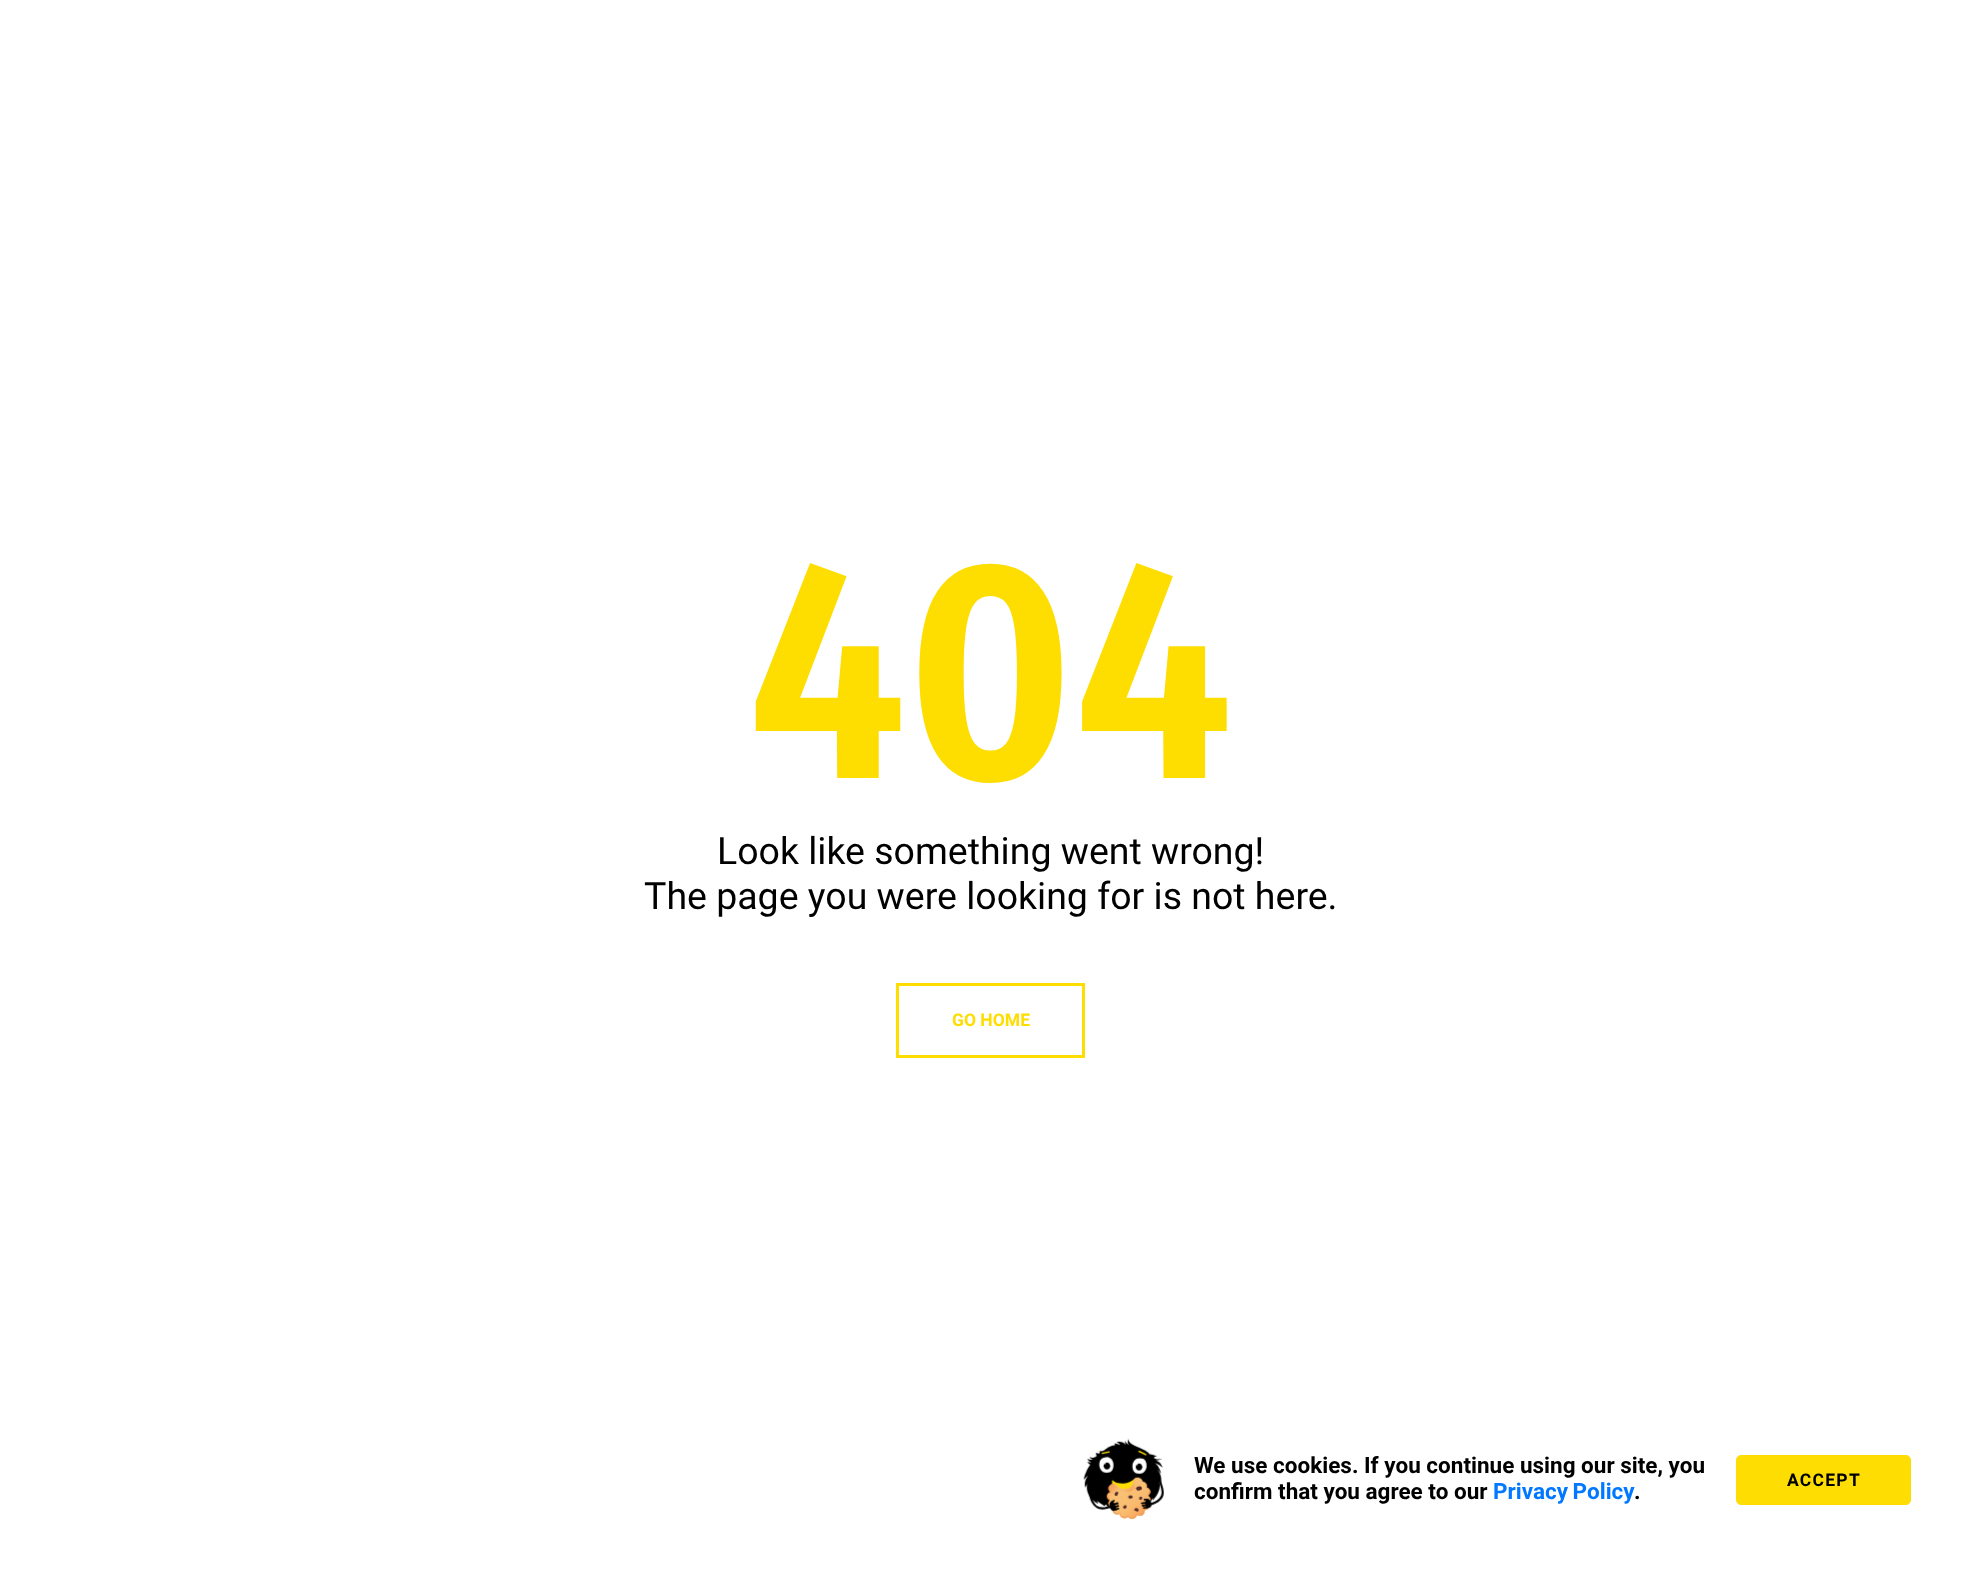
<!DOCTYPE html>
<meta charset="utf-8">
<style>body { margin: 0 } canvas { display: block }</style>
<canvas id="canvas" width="1981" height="1574"></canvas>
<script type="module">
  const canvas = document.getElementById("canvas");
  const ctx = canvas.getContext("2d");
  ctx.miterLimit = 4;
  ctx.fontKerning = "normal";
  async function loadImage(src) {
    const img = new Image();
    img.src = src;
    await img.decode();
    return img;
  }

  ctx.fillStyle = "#ffffff";
  ctx.fillRect(0, 0, 1981, 1574);
  ctx.font = "600 312px Fira Sans Condensed";
  ctx.fillStyle = "#fedd00";
  ctx.fillText("404", 748, 778);
  ctx.font = "37.5px Roboto";
  ctx.fillStyle = "#000000";
  ctx.fillText("Look like something went wrong!", 717, 864);
  ctx.fillText("The page you were looking for is not here.", 644, 909);
  ctx.strokeStyle = "#fedd00";
  ctx.lineWidth = 3;
  ctx.strokeRect(897.5, 984.5, 186, 72);
  ctx.font = "bold 17.5px Roboto";
  ctx.fillStyle = "#fedd00";
  ctx.fillText("GO HOME", 952, 1026);
  ctx.drawImage(await loadImage("img1.png"), 1083, 1438, 81, 81);
  ctx.font = "bold 22.5px Roboto";
  ctx.fillStyle = "#000000";
  ctx.fillText("We use cookies. If you continue using our site, you", 1194, 1473);
  ctx.fillText("confirm that you agree to our", 1194, 1499);
  ctx.wordSpacing = "-1px";
  ctx.fillStyle = "#0078ff";
  ctx.fillText("Privacy Policy", 1493, 1499);
  ctx.wordSpacing = "0px";
  ctx.fillStyle = "#000000";
  ctx.fillText(".", 1634, 1499);
  ctx.fillStyle = "#fedd03";
  ctx.beginPath();
  ctx.roundRect(1736.5, 1455.5, 174, 49, 4.5);
  ctx.fill();
  ctx.strokeStyle = "#fedd03";
  ctx.lineWidth = 1;
  ctx.stroke();
  ctx.letterSpacing = "1.25px";
  ctx.font = "bold 17.5px Roboto";
  ctx.fillStyle = "#000000";
  ctx.fillText("ACCEPT", 1787, 1486);
</script>
